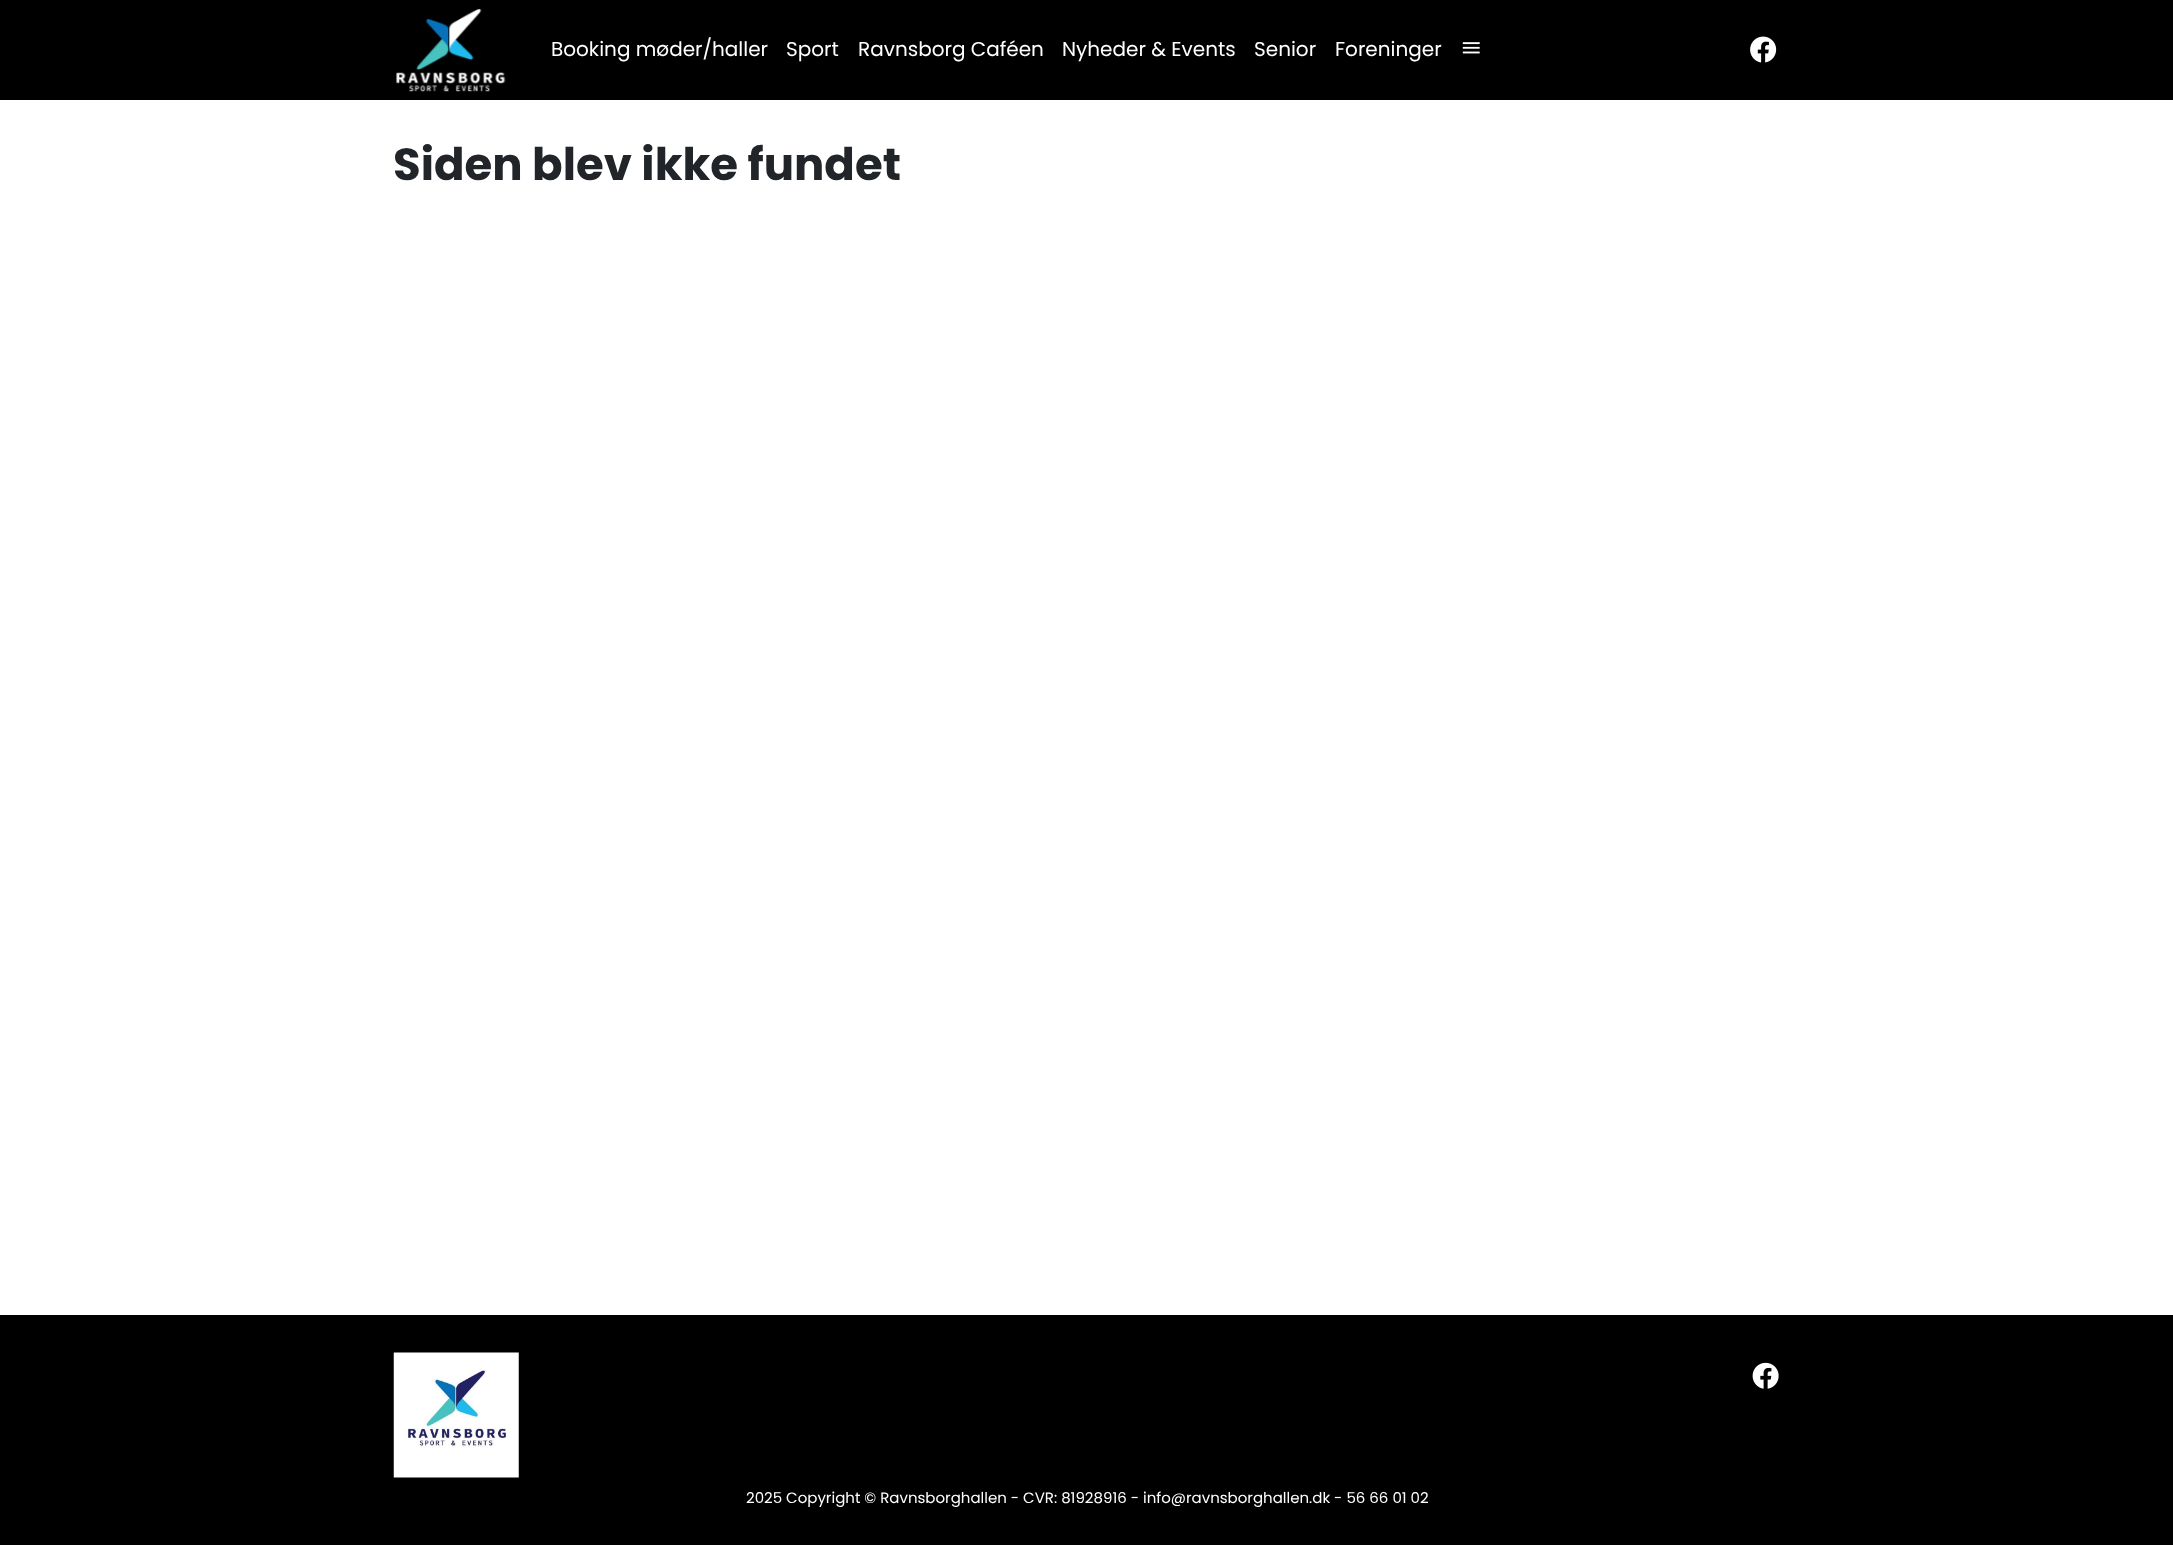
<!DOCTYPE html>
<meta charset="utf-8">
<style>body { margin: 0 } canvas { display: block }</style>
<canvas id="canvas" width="2173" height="1545"></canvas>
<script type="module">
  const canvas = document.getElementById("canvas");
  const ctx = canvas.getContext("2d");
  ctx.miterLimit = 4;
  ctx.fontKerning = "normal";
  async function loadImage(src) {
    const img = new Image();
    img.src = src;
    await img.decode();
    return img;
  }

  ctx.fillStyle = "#ffffff";
  ctx.fillRect(0, 0, 2173, 1545);
  ctx.fillStyle = "#000000";
  ctx.fillRect(0, 0, 2173, 100);
  ctx.drawImage(await loadImage("img1.png"), 396, 9, 110, 83);
  ctx.font = "20px Poppins";
  ctx.fillStyle = "#ffffff";
  ctx.fillText("Booking møder/haller", 551, 56);
  ctx.fillText("Sport", 786, 56);
  ctx.fillText("Ravnsborg Caféen", 858, 56);
  ctx.fillText("Nyheder & Events", 1062, 56);
  ctx.fillText("Senior", 1254, 56);
  ctx.fillText("Foreninger", 1335, 56);
  ctx.drawImage(await loadImage("img2.png"), 1462, 42, 18, 12);
  ctx.drawImage(await loadImage("img3.png"), 1750, 36, 27, 27);
  ctx.font = "bold 45px Poppins";
  ctx.fillStyle = "#212529";
  ctx.fillText("Siden blev ikke fundet", 393, 180);
  ctx.fillStyle = "#000000";
  ctx.fillRect(0, 1315, 2173, 230);
  ctx.drawImage(await loadImage("img4.png"), 393, 1352, 126, 126);
  ctx.drawImage(await loadImage("img5.png"), 1752, 1362, 27, 27);
  ctx.font = "15px Poppins";
  ctx.fillStyle = "#ffffff";
  ctx.fillText("2025 Copyright © Ravnsborghallen - CVR: 81928916 - info@ravnsborghallen.dk - 56 66 01 02", 746, 1503);
</script>
